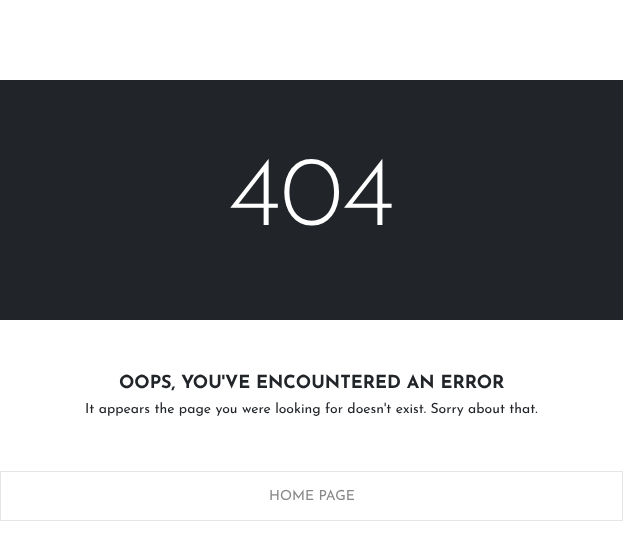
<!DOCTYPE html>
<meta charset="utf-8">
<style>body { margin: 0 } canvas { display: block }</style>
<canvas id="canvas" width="623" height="560"></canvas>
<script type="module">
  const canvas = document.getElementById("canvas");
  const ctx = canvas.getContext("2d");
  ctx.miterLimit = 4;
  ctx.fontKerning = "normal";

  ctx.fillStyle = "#ffffff";
  ctx.fillRect(0, 0, 623, 560);
  ctx.fillStyle = "#212529";
  ctx.fillRect(0, 80, 623, 240);
  ctx.font = "300 100px Josefin Sans";
  ctx.fillStyle = "#ffffff";
  ctx.fillText("404", 229, 225);
  ctx.font = "bold 18px Josefin Sans";
  ctx.fillStyle = "#212529";
  ctx.fillText("OOPS, YOU'VE ENCOUNTERED AN ERROR", 119, 388);
  ctx.font = "14px Josefin Sans";
  ctx.fillText("It appears the page you were looking for doesn't exist. Sorry about that.", 85, 413);
  ctx.strokeStyle = "#e5e5e5";
  ctx.strokeRect(0.5, 471.5, 622, 49);
  ctx.fillStyle = "#888888";
  ctx.fillText("HOME PAGE", 269, 500);
</script>
